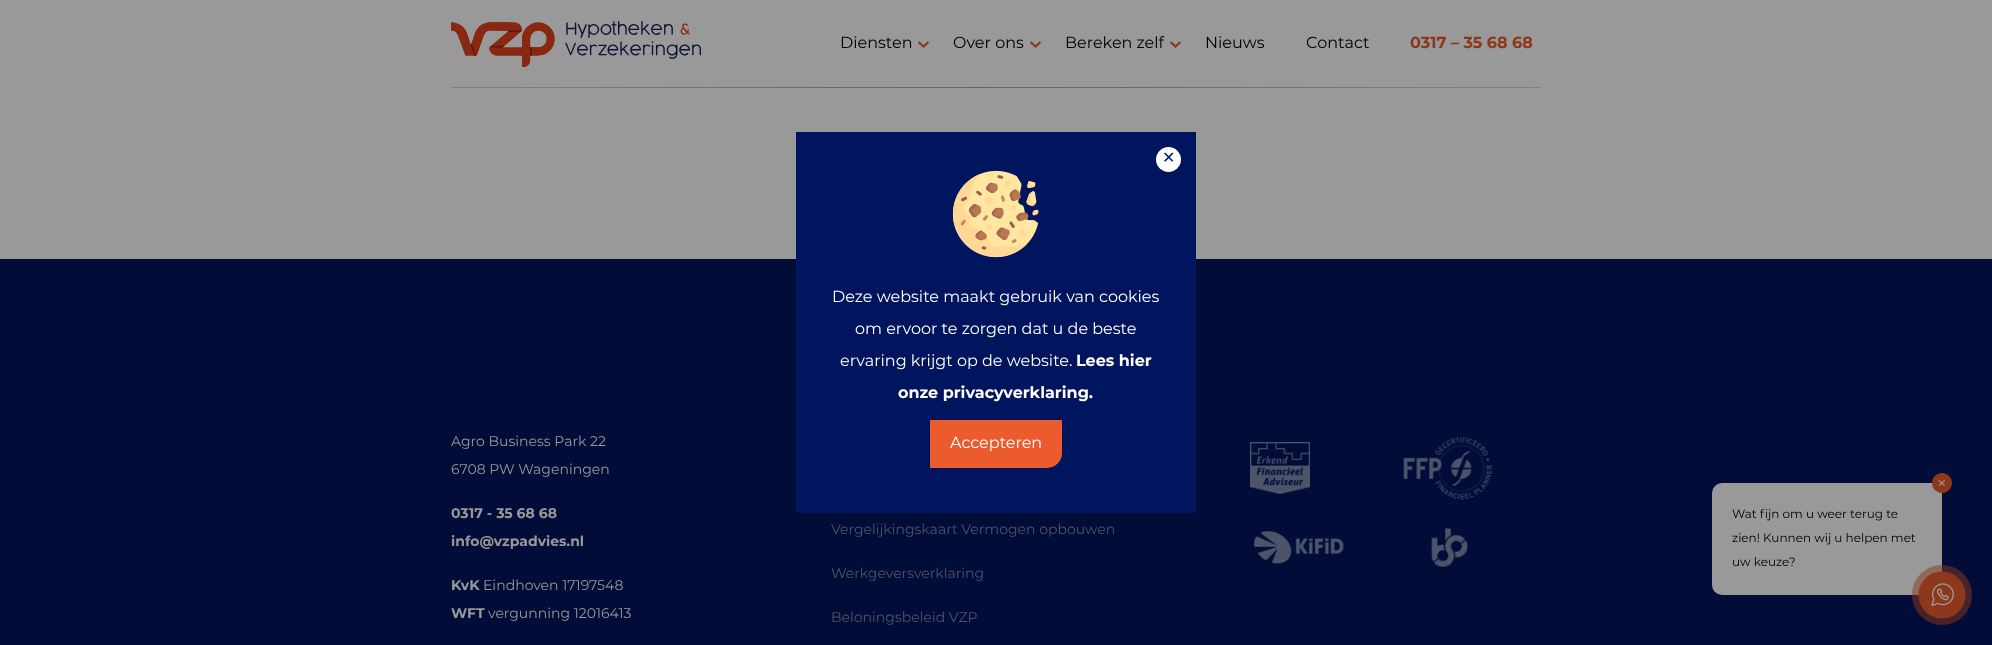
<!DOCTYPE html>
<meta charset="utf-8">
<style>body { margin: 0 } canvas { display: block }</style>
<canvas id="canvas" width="1992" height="645"></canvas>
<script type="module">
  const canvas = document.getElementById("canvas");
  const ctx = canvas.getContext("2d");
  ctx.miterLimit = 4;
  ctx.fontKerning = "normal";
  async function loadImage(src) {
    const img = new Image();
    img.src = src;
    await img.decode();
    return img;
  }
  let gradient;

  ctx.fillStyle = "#999999";
  ctx.fillRect(0, 0, 1992, 645);
  gradient = ctx.createLinearGradient(36, 87, 1956, 87);
  gradient.addColorStop(0, "#999999");
  gradient.addColorStop(0.49, "#616370");
  gradient.addColorStop(1, "#999999");
  ctx.fillStyle = gradient;
  ctx.fillRect(451, 87, 1090, 1);
  ctx.drawImage(await loadImage("img1.png"), 451, 21, 250, 46);
  ctx.font = "16px Montserrat";
  ctx.fillStyle = "#000000";
  ctx.fillText("Diensten", 840, 48);
  ctx.beginPath();
  ctx.moveTo(918.5, 42);
  ctx.lineTo(923.5, 46.5);
  ctx.lineTo(928.5, 42);
  ctx.strokeStyle = "#8d371b";
  ctx.lineWidth = 2.1;
  ctx.stroke();
  ctx.fillText("Over ons", 953, 48);
  ctx.beginPath();
  ctx.moveTo(1030.5, 42);
  ctx.lineTo(1035.5, 46.5);
  ctx.lineTo(1040.5, 42);
  ctx.stroke();
  ctx.fillText("Bereken zelf", 1065, 48);
  ctx.beginPath();
  ctx.moveTo(1170.5, 42);
  ctx.lineTo(1175.5, 46.5);
  ctx.lineTo(1180.5, 42);
  ctx.stroke();
  ctx.fillText("Nieuws", 1205, 48);
  ctx.fillText("Contact", 1306, 48);
  ctx.font = "bold 16px Montserrat";
  ctx.fillStyle = "#8d371b";
  ctx.fillText("0317 – 35 68 68", 1410, 48);
  ctx.fillStyle = "#010c38";
  ctx.fillRect(0, 259, 1992, 386);
  ctx.fillStyle = "#01145e";
  ctx.fillRect(796, 132, 400, 381);
  ctx.fillStyle = "#ffffff";
  ctx.beginPath();
  ctx.arc(1168.5, 159.5, 12.5, 0, Math.PI * 2);
  ctx.fill();
  ctx.font = "16px DejaVu Sans";
  ctx.fillStyle = "#01145e";
  ctx.fillText("✕", 1162, 163);
  ctx.drawImage(await loadImage("img2.png"), 952, 170, 87, 88);
  ctx.font = "16px Montserrat";
  ctx.fillStyle = "#ffffff";
  ctx.fillText("Deze website maakt gebruik van cookies", 832, 302);
  ctx.fillText("om ervoor te zorgen dat u de beste", 855, 334);
  ctx.fillText("ervaring krijgt op de website.", 840, 366);
  ctx.font = "bold 16px Montserrat";
  ctx.fillText("Lees hier", 1076, 366);
  ctx.fillText("onze privacyverklaring.", 898, 398);
  ctx.fillStyle = "#eb5b2d";
  ctx.beginPath();
  ctx.roundRect(930, 420, 132, 48, [0, 0, 15, 0]);
  ctx.fill();
  ctx.font = "16px Montserrat";
  ctx.fillStyle = "#ffffff";
  ctx.fillText("Accepteren", 950, 448);
  ctx.font = "14px Montserrat";
  ctx.fillStyle = "#999999";
  ctx.fillText("Agro Business Park 22", 451, 446);
  ctx.fillText("6708 PW Wageningen", 451, 474);
  ctx.font = "bold 14px Montserrat";
  ctx.fillText("0317 - 35 68 68", 451, 518);
  ctx.fillText("info@vzpadvies.nl", 451, 546);
  ctx.fillText("KvK", 451, 590);
  ctx.font = "14px Montserrat";
  ctx.fillText("Eindhoven 17197548", 483, 590);
  ctx.font = "bold 14px Montserrat";
  ctx.fillText("WFT", 451, 618);
  ctx.font = "14px Montserrat";
  ctx.fillText("vergunning 12016413", 488, 618);
  ctx.fillStyle = "#4f5367";
  ctx.fillText("Vergelijkingskaart Vermogen opbouwen", 831, 534);
  ctx.fillText("Werkgeversverklaring", 831, 578);
  ctx.fillText("Beloningsbeleid VZP", 831, 622);
  ctx.drawImage(await loadImage("img3.png"), 1250, 442, 60, 52);
  ctx.drawImage(await loadImage("img4.png"), 1403, 436, 90, 64);
  ctx.drawImage(await loadImage("img5.png"), 1254, 531, 90, 33);
  ctx.drawImage(await loadImage("img6.png"), 1431, 528, 37, 39);
  ctx.fillStyle = "#999999";
  ctx.beginPath();
  ctx.roundRect(1712, 483, 230, 112, 10);
  ctx.fill();
  ctx.drawImage(await loadImage("img7.png"), 1932, 473, 20, 20);
  ctx.font = "12px Montserrat";
  ctx.fillStyle = "#000000";
  ctx.fillText("Wat fijn om u weer terug te", 1732, 518);
  ctx.fillText("zien! Kunnen wij u helpen met", 1732, 542);
  ctx.fillText("uw keuze?", 1732, 566);
  ctx.drawImage(await loadImage("img8.png"), 1912, 565, 60, 60);
</script>
